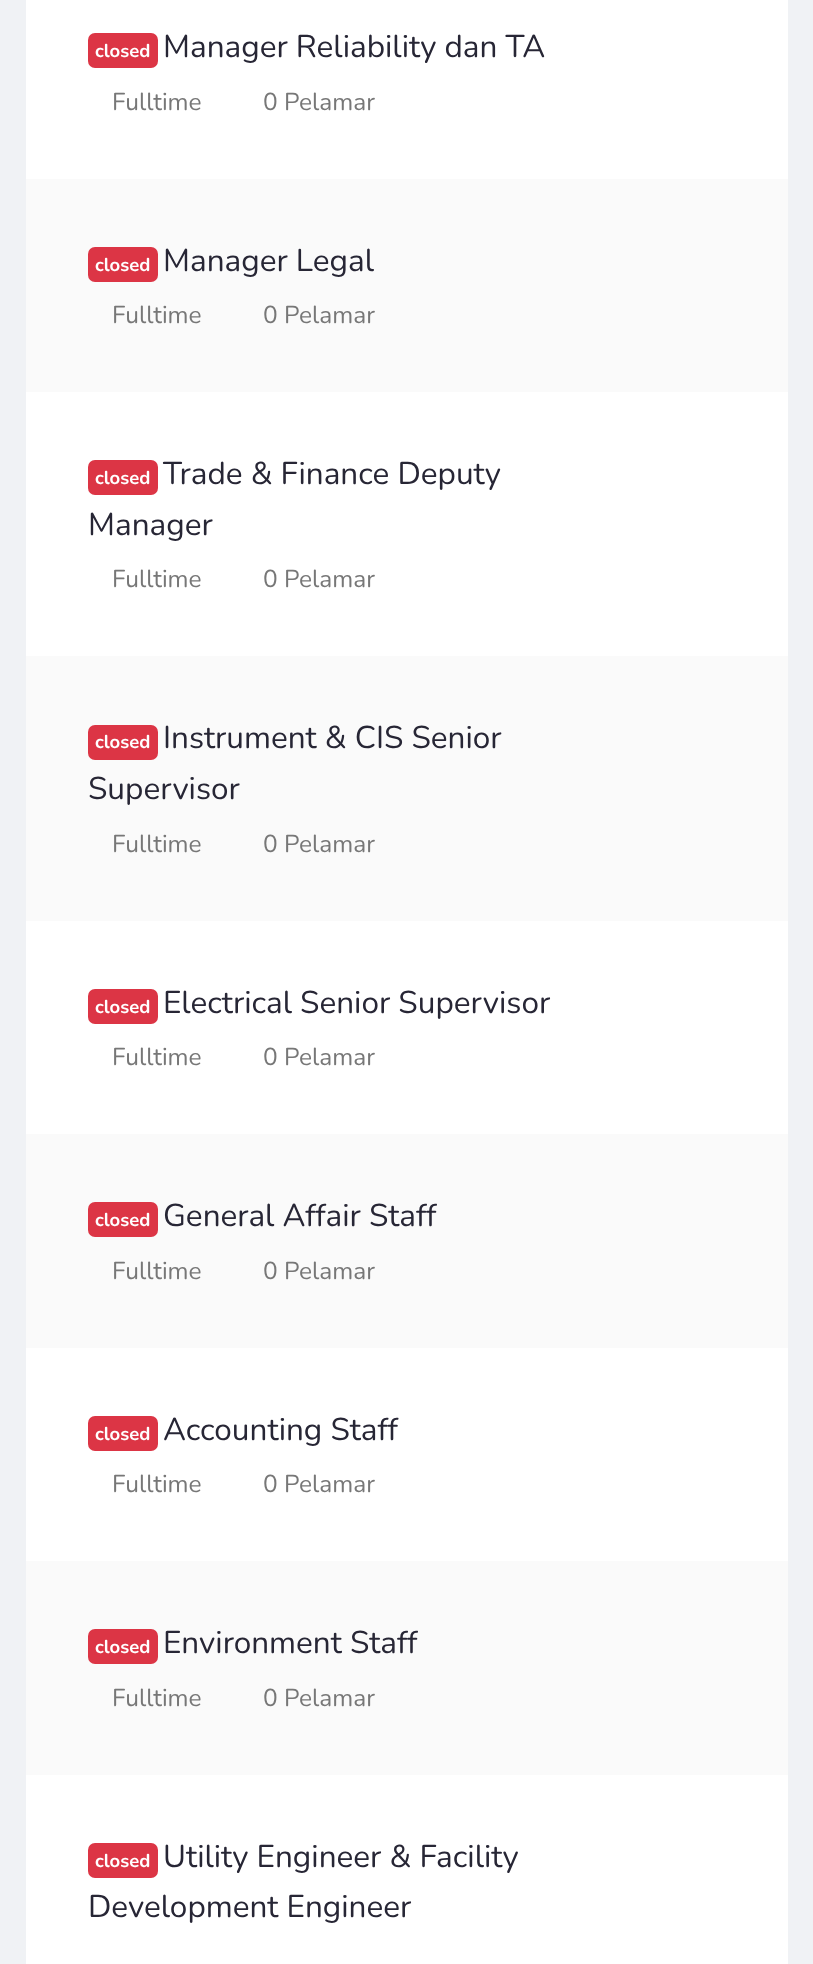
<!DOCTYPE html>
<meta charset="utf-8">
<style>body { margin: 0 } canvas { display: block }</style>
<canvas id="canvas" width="813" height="1964"></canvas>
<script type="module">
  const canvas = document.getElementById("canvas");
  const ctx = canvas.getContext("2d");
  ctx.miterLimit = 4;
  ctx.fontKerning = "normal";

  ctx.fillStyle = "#f0f2f5";
  ctx.fillRect(0, 0, 813, 1964);
  ctx.fillStyle = "#ffffff";
  ctx.fillRect(26, 0, 762, 1964);
  ctx.fillStyle = "#dc3545";
  ctx.beginPath();
  ctx.roundRect(88, 33, 70, 35, 7);
  ctx.fill();
  ctx.font = "bold 18.5px Nunito";
  ctx.fillStyle = "#ffffff";
  ctx.fillText("closed", 95, 57);
  ctx.font = "31.5px Nunito";
  ctx.fillStyle = "#272635";
  ctx.fillText("Manager Reliability dan TA", 163, 57);
  ctx.font = "24.5px Nunito";
  ctx.fillStyle = "#777777";
  ctx.fillText("Fulltime", 112, 110);
  ctx.fillText("0 Pelamar", 263, 110);
  ctx.fillStyle = "#fafafa";
  ctx.fillRect(26, 179, 762, 213);
  ctx.fillStyle = "#dc3545";
  ctx.beginPath();
  ctx.roundRect(88, 247, 70, 35, 7);
  ctx.fill();
  ctx.font = "bold 18.5px Nunito";
  ctx.fillStyle = "#ffffff";
  ctx.fillText("closed", 95, 271);
  ctx.font = "31.5px Nunito";
  ctx.fillStyle = "#272635";
  ctx.fillText("Manager Legal", 163, 271);
  ctx.font = "24.5px Nunito";
  ctx.fillStyle = "#777777";
  ctx.fillText("Fulltime", 112, 323);
  ctx.fillText("0 Pelamar", 263, 323);
  ctx.fillStyle = "#dc3545";
  ctx.beginPath();
  ctx.roundRect(88, 460, 70, 35, 7);
  ctx.fill();
  ctx.font = "bold 18.5px Nunito";
  ctx.fillStyle = "#ffffff";
  ctx.fillText("closed", 95, 484);
  ctx.font = "31.5px Nunito";
  ctx.fillStyle = "#272635";
  ctx.fillText("Trade & Finance Deputy", 163, 484);
  ctx.fillText("Manager", 88, 535);
  ctx.font = "24.5px Nunito";
  ctx.fillStyle = "#777777";
  ctx.fillText("Fulltime", 112, 587);
  ctx.fillText("0 Pelamar", 263, 587);
  ctx.fillStyle = "#fafafa";
  ctx.fillRect(26, 656, 762, 265);
  ctx.fillStyle = "#dc3545";
  ctx.beginPath();
  ctx.roundRect(88, 725, 70, 35, 7);
  ctx.fill();
  ctx.font = "bold 18.5px Nunito";
  ctx.fillStyle = "#ffffff";
  ctx.fillText("closed", 95, 748);
  ctx.font = "31.5px Nunito";
  ctx.fillStyle = "#272635";
  ctx.fillText("Instrument & CIS Senior", 163, 748);
  ctx.fillText("Supervisor", 88, 799);
  ctx.font = "24.5px Nunito";
  ctx.fillStyle = "#777777";
  ctx.fillText("Fulltime", 112, 852);
  ctx.fillText("0 Pelamar", 263, 852);
  ctx.fillStyle = "#dc3545";
  ctx.beginPath();
  ctx.roundRect(88, 989, 70, 35, 7);
  ctx.fill();
  ctx.font = "bold 18.5px Nunito";
  ctx.fillStyle = "#ffffff";
  ctx.fillText("closed", 95, 1013);
  ctx.font = "31.5px Nunito";
  ctx.fillStyle = "#272635";
  ctx.fillText("Electrical Senior Supervisor", 163, 1013);
  ctx.font = "24.5px Nunito";
  ctx.fillStyle = "#777777";
  ctx.fillText("Fulltime", 112, 1065);
  ctx.fillText("0 Pelamar", 263, 1065);
  ctx.fillStyle = "#fafafa";
  ctx.fillRect(26, 1134, 762, 214);
  ctx.fillStyle = "#dc3545";
  ctx.beginPath();
  ctx.roundRect(88, 1202, 70, 35, 7);
  ctx.fill();
  ctx.font = "bold 18.5px Nunito";
  ctx.fillStyle = "#ffffff";
  ctx.fillText("closed", 95, 1226);
  ctx.font = "31.5px Nunito";
  ctx.fillStyle = "#272635";
  ctx.fillText("General Affair Staff", 163, 1226);
  ctx.font = "24.5px Nunito";
  ctx.fillStyle = "#777777";
  ctx.fillText("Fulltime", 112, 1279);
  ctx.fillText("0 Pelamar", 263, 1279);
  ctx.fillStyle = "#dc3545";
  ctx.beginPath();
  ctx.roundRect(88, 1416, 70, 35, 7);
  ctx.fill();
  ctx.font = "bold 18.5px Nunito";
  ctx.fillStyle = "#ffffff";
  ctx.fillText("closed", 95, 1440);
  ctx.font = "31.5px Nunito";
  ctx.fillStyle = "#272635";
  ctx.fillText("Accounting Staff", 163, 1440);
  ctx.font = "24.5px Nunito";
  ctx.fillStyle = "#777777";
  ctx.fillText("Fulltime", 112, 1492);
  ctx.fillText("0 Pelamar", 263, 1492);
  ctx.fillStyle = "#fafafa";
  ctx.fillRect(26, 1561, 762, 214);
  ctx.fillStyle = "#dc3545";
  ctx.beginPath();
  ctx.roundRect(88, 1629, 70, 35, 7);
  ctx.fill();
  ctx.font = "bold 18.5px Nunito";
  ctx.fillStyle = "#ffffff";
  ctx.fillText("closed", 95, 1653);
  ctx.font = "31.5px Nunito";
  ctx.fillStyle = "#272635";
  ctx.fillText("Environment Staff", 163, 1653);
  ctx.font = "24.5px Nunito";
  ctx.fillStyle = "#777777";
  ctx.fillText("Fulltime", 112, 1706);
  ctx.fillText("0 Pelamar", 263, 1706);
  ctx.fillStyle = "#dc3545";
  ctx.beginPath();
  ctx.roundRect(88, 1843, 70, 35, 7);
  ctx.fill();
  ctx.font = "bold 18.5px Nunito";
  ctx.fillStyle = "#ffffff";
  ctx.fillText("closed", 95, 1867);
  ctx.font = "31.5px Nunito";
  ctx.fillStyle = "#272635";
  ctx.fillText("Utility Engineer & Facility", 163, 1867);
  ctx.fillText("Development Engineer", 88, 1917);
</script>
